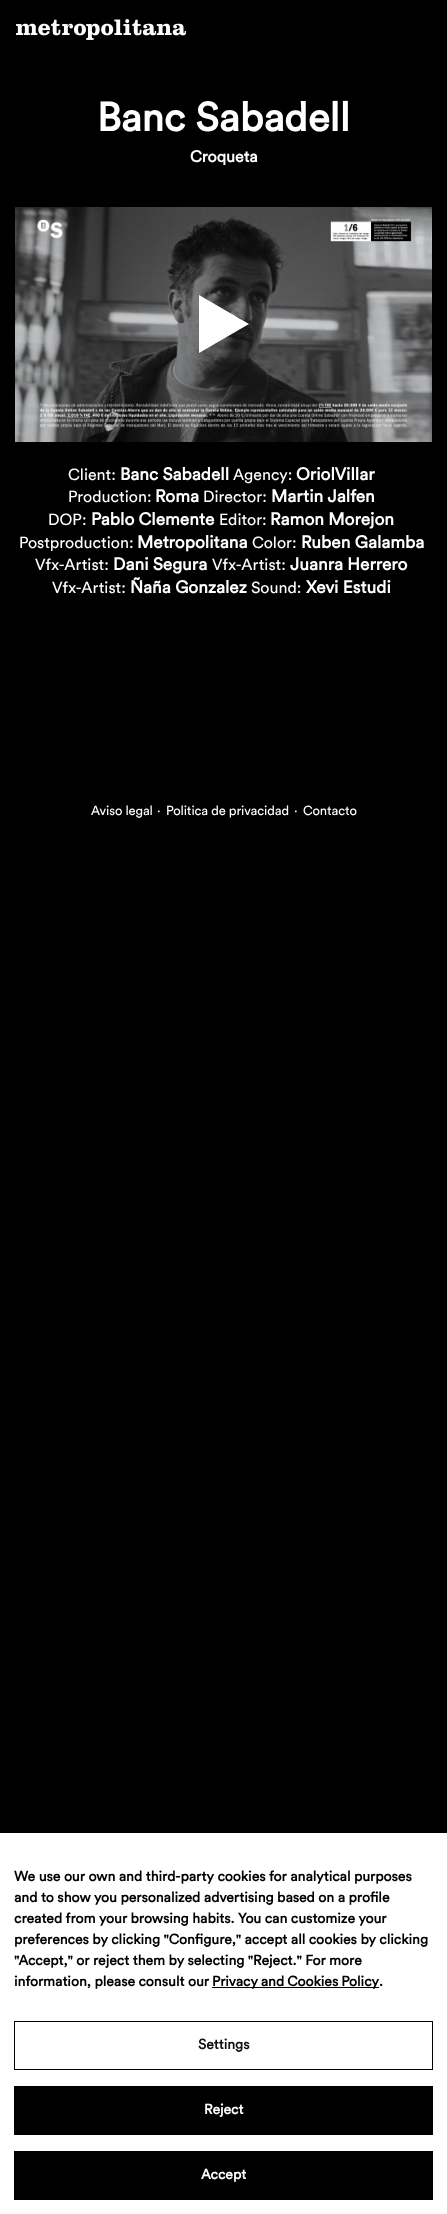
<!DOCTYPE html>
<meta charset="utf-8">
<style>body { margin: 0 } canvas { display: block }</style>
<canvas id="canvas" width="447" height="2214"></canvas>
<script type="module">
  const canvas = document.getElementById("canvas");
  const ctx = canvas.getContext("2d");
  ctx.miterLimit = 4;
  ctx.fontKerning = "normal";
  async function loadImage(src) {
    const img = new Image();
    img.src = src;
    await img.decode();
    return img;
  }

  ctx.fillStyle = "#000000";
  ctx.fillRect(0, 0, 447, 2214);
  ctx.drawImage(await loadImage("img1.png"), 16, 19, 170, 21);
  ctx.font = "bold 40px Circular";
  ctx.fillStyle = "#ffffff";
  ctx.fillText("Banc Sabadell", 97, 131);
  ctx.font = "bold 16px Circular";
  ctx.fillText("Croqueta", 190, 162);
  ctx.drawImage(await loadImage("img2.png"), 15, 207, 13, 235);
  ctx.drawImage(await loadImage("img3.png"), 28, 207, 404, 235);
  ctx.beginPath();
  ctx.moveTo(199, 295);
  ctx.lineTo(199, 353);
  ctx.lineTo(249, 324);
  ctx.closePath();
  ctx.fill();
  ctx.font = "16px Circular";
  ctx.fillText("Client:", 68, 480);
  ctx.font = "bold 17.25px Circular";
  ctx.fillText("Banc Sabadell", 120, 480);
  ctx.font = "16px Circular";
  ctx.fillText("Agency:", 233, 480);
  ctx.font = "bold 17.25px Circular";
  ctx.fillText("OriolVillar", 296, 480);
  ctx.font = "16px Circular";
  ctx.fillText("Production:", 68, 502);
  ctx.font = "bold 17.25px Circular";
  ctx.fillText("Roma", 155, 502);
  ctx.font = "16px Circular";
  ctx.fillText("Director:", 203, 502);
  ctx.font = "bold 17.25px Circular";
  ctx.fillText("Martin Jalfen", 271, 502);
  ctx.font = "16px Circular";
  ctx.fillText("DOP:", 48, 525);
  ctx.font = "bold 17.25px Circular";
  ctx.fillText("Pablo Clemente", 91, 525);
  ctx.font = "16px Circular";
  ctx.fillText("Editor:", 219, 525);
  ctx.font = "bold 17.25px Circular";
  ctx.fillText("Ramon Morejon", 270, 525);
  ctx.font = "16px Circular";
  ctx.fillText("Postproduction:", 19, 548);
  ctx.font = "bold 17.25px Circular";
  ctx.fillText("Metropolitana", 137, 548);
  ctx.font = "16px Circular";
  ctx.fillText("Color:", 252, 548);
  ctx.font = "bold 17.25px Circular";
  ctx.fillText("Ruben Galamba", 301, 548);
  ctx.font = "16px Circular";
  ctx.fillText("Vfx-Artist:", 35, 570);
  ctx.font = "bold 17.25px Circular";
  ctx.fillText("Dani Segura", 113, 570);
  ctx.font = "16px Circular";
  ctx.fillText("Vfx-Artist:", 212, 570);
  ctx.font = "bold 17.25px Circular";
  ctx.fillText("Juanra Herrero", 290, 570);
  ctx.font = "16px Circular";
  ctx.fillText("Vfx-Artist:", 52, 593);
  ctx.font = "bold 17.25px Circular";
  ctx.fillText("Ñaña Gonzalez", 130, 593);
  ctx.font = "16px Circular";
  ctx.fillText("Sound:", 251, 593);
  ctx.font = "bold 17.25px Circular";
  ctx.fillText("Xevi Estudi", 306, 593);
  ctx.letterSpacing = "-0.1px";
  ctx.font = "13px Circular";
  ctx.fillText("Aviso legal", 91, 815);
  ctx.fillText("·", 157, 815);
  ctx.fillText("Politica de privacidad", 166, 815);
  ctx.fillText("·", 294, 815);
  ctx.fillText("Contacto", 303, 815);
  ctx.fillRect(0, 1833, 447, 381);
  ctx.letterSpacing = "0px";
  ctx.font = "bold 14px Circular";
  ctx.fillStyle = "#000000";
  ctx.fillText("We use our own and third-party cookies for analytical purposes", 14, 1881);
  ctx.fillText("and to show you personalized advertising based on a profile", 14, 1902);
  ctx.fillText("created from your browsing habits. You can customize your", 14, 1923);
  ctx.fillText("preferences by clicking \"Configure,\" accept all cookies by clicking", 14, 1944);
  ctx.fillText("\"Accept,\" or reject them by selecting \"Reject.\" For more", 14, 1965);
  ctx.fillText("information, please consult our", 14, 1986);
  ctx.fillRect(212, 1987, 167, 1);
  ctx.wordSpacing = "-0.5px";
  ctx.fillText("Privacy and Cookies Policy", 212, 1986);
  ctx.wordSpacing = "0px";
  ctx.fillText(".", 379, 1986);
  ctx.strokeStyle = "#000000";
  ctx.strokeRect(14.5, 2021.5, 418, 48);
  ctx.fillStyle = "#111111";
  ctx.fillText("Settings", 198, 2049);
  ctx.fillStyle = "#000000";
  ctx.fillRect(14, 2086, 419, 49);
  ctx.fillStyle = "#ffffff";
  ctx.fillText("Reject", 204, 2114);
  ctx.fillStyle = "#000000";
  ctx.fillRect(14, 2151, 419, 49);
  ctx.fillStyle = "#ffffff";
  ctx.fillText("Accept", 201, 2179);
</script>
